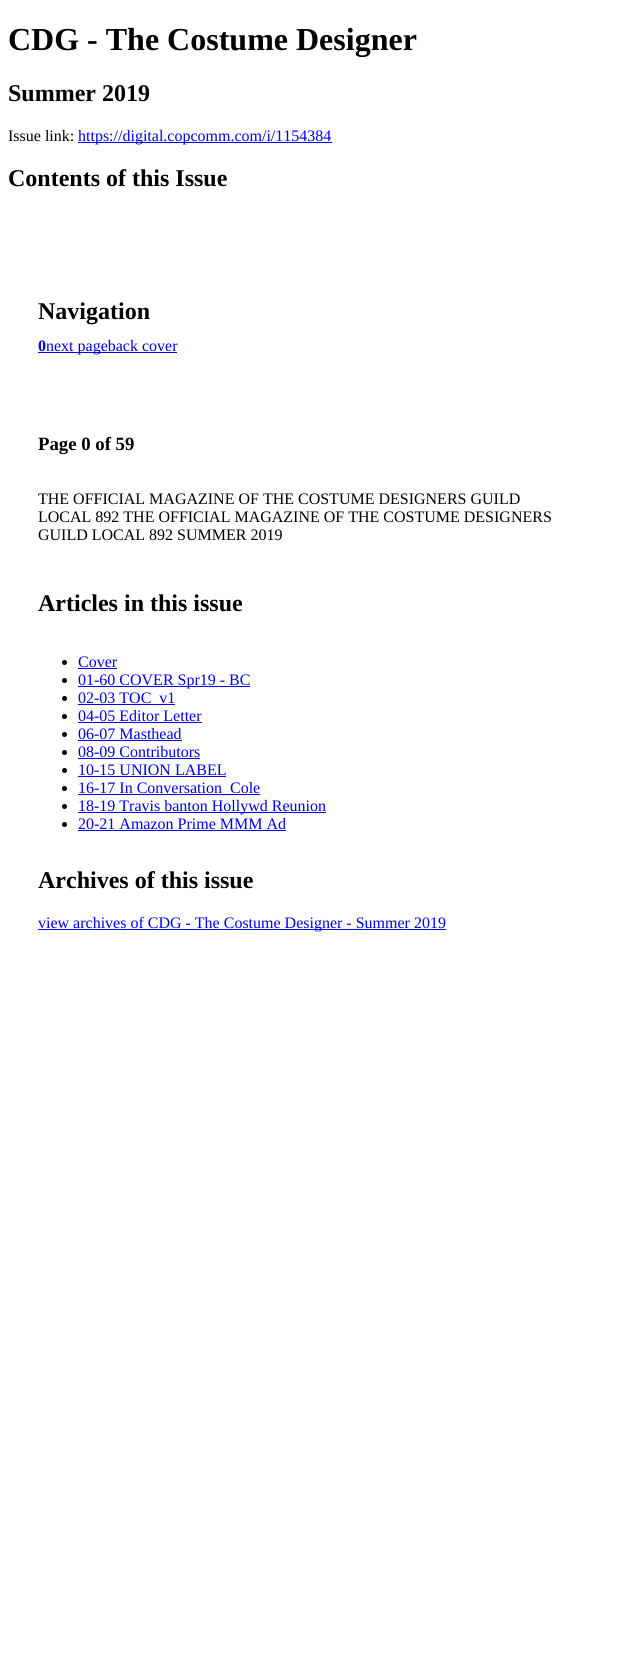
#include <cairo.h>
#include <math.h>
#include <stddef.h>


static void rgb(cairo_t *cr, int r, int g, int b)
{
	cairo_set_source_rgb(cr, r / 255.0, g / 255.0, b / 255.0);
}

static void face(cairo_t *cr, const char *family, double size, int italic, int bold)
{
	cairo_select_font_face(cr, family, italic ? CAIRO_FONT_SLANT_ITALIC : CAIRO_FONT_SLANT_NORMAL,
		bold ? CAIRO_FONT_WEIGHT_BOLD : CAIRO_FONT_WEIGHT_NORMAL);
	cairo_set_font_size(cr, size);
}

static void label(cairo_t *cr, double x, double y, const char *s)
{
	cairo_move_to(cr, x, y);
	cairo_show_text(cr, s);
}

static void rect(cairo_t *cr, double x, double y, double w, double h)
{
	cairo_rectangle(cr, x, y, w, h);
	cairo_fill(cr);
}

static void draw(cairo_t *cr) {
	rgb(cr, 255, 255, 255);
	cairo_paint(cr);
	face(cr, "Liberation Serif", 32, 0, 1);
	rgb(cr, 0, 0, 0);
	label(cr, 8, 50, "CDG - The Costume Designer");
	face(cr, "Liberation Serif", 24, 0, 1);
	label(cr, 8, 101, "Summer 2019");
	face(cr, "Liberation Serif", 16, 0, 0);
	label(cr, 8, 141, "Issue link:");
	rgb(cr, 0, 0, 238);
	rect(cr, 78, 142, 254, 1);
	label(cr, 78, 141, "https://digital.copcomm.com/i/1154384");
	face(cr, "Liberation Serif", 24, 0, 1);
	rgb(cr, 0, 0, 0);
	label(cr, 8, 186, "Contents of this Issue");
	label(cr, 38, 319, "Navigation");
	face(cr, "Liberation Serif", 16, 0, 1);
	rgb(cr, 0, 0, 238);
	label(cr, 38, 351, "0");
	rect(cr, 38, 352, 139, 1);
	face(cr, "Liberation Serif", 16, 0, 0);
	label(cr, 46, 351, "next pageback cover");
	face(cr, "Liberation Serif", 18.75, 0, 1);
	rgb(cr, 0, 0, 0);
	label(cr, 38, 450, "Page 0 of 59");
	face(cr, "Liberation Serif", 16, 0, 0);
	label(cr, 38, 504, "THE OFFICIAL MAGAZINE OF THE COSTUME DESIGNERS GUILD");
	label(cr, 38, 522, "LOCAL 892 THE OFFICIAL MAGAZINE OF THE COSTUME DESIGNERS");
	label(cr, 38, 540, "GUILD LOCAL 892 SUMMER 2019");
	face(cr, "Liberation Serif", 24, 0, 1);
	label(cr, 38, 611, "Articles in this issue");
	cairo_new_path(cr);
	cairo_arc(cr, 64.5, 662.5, 2.5, 0, 2 * M_PI);
	cairo_fill(cr);
	face(cr, "Liberation Serif", 16, 0, 0);
	rgb(cr, 0, 0, 238);
	label(cr, 78, 667, "Cover");
	rect(cr, 78, 668, 39, 1);
	rgb(cr, 0, 0, 0);
	cairo_new_path(cr);
	cairo_arc(cr, 64.5, 680.5, 2.5, 0, 2 * M_PI);
	cairo_fill(cr);
	rgb(cr, 0, 0, 238);
	rect(cr, 78, 686, 172, 1);
	label(cr, 78, 685, "01-60 COVER Spr19 - BC");
	rgb(cr, 0, 0, 0);
	cairo_new_path(cr);
	cairo_arc(cr, 64.5, 698.5, 2.5, 0, 2 * M_PI);
	cairo_fill(cr);
	rgb(cr, 0, 0, 238);
	rect(cr, 78, 704, 97, 1);
	label(cr, 78, 703, "02-03 TOC_v1");
	rgb(cr, 0, 0, 0);
	cairo_new_path(cr);
	cairo_arc(cr, 64.5, 716.5, 2.5, 0, 2 * M_PI);
	cairo_fill(cr);
	rgb(cr, 0, 0, 238);
	label(cr, 78, 721, "04-05 Editor Letter");
	rect(cr, 78, 722, 124, 1);
	rgb(cr, 0, 0, 0);
	cairo_new_path(cr);
	cairo_arc(cr, 64.5, 734.5, 2.5, 0, 2 * M_PI);
	cairo_fill(cr);
	rgb(cr, 0, 0, 238);
	label(cr, 78, 739, "06-07 Masthead");
	rect(cr, 78, 740, 104, 1);
	rgb(cr, 0, 0, 0);
	cairo_new_path(cr);
	cairo_arc(cr, 64.5, 752.5, 2.5, 0, 2 * M_PI);
	cairo_fill(cr);
	rgb(cr, 0, 0, 238);
	label(cr, 78, 757, "08-09 Contributors");
	rect(cr, 78, 758, 122, 1);
	rgb(cr, 0, 0, 0);
	cairo_new_path(cr);
	cairo_arc(cr, 64.5, 770.5, 2.5, 0, 2 * M_PI);
	cairo_fill(cr);
	rgb(cr, 0, 0, 238);
	label(cr, 78, 775, "10-15 UNION LABEL");
	rect(cr, 78, 776, 148, 1);
	rgb(cr, 0, 0, 0);
	cairo_new_path(cr);
	cairo_arc(cr, 64.5, 788.5, 2.5, 0, 2 * M_PI);
	cairo_fill(cr);
	rgb(cr, 0, 0, 238);
	rect(cr, 78, 794, 182, 1);
	label(cr, 78, 793, "16-17 In Conversation_Cole");
	rgb(cr, 0, 0, 0);
	cairo_new_path(cr);
	cairo_arc(cr, 64.5, 806.5, 2.5, 0, 2 * M_PI);
	cairo_fill(cr);
	rgb(cr, 0, 0, 238);
	rect(cr, 78, 812, 248, 1);
	label(cr, 78, 811, "18-19 Travis banton Hollywd Reunion");
	rgb(cr, 0, 0, 0);
	cairo_new_path(cr);
	cairo_arc(cr, 64.5, 824.5, 2.5, 0, 2 * M_PI);
	cairo_fill(cr);
	rgb(cr, 0, 0, 238);
	label(cr, 78, 829, "20-21 Amazon Prime MMM Ad");
	rect(cr, 78, 830, 208, 1);
	face(cr, "Liberation Serif", 24, 0, 1);
	rgb(cr, 0, 0, 0);
	label(cr, 38, 888, "Archives of this issue");
	rgb(cr, 0, 0, 238);
	rect(cr, 38, 929, 408, 1);
	face(cr, "Liberation Serif", 16, 0, 0);
	label(cr, 38, 928, "view archives of CDG - The Costume Designer - Summer 2019");
}

int main(void) {
	cairo_surface_t *surface = cairo_image_surface_create(CAIRO_FORMAT_RGB24, 618, 1654);
	cairo_t *cr = cairo_create(surface);
	cairo_font_options_t *options = cairo_font_options_create();
	cairo_font_options_set_hint_metrics(options, CAIRO_HINT_METRICS_OFF);
	cairo_font_options_set_hint_style(options, CAIRO_HINT_STYLE_NONE);
	cairo_set_font_options(cr, options);
	cairo_set_miter_limit(cr, 4);
	draw(cr);
	cairo_surface_write_to_png(surface, "render.png");
	cairo_font_options_destroy(options);
	cairo_destroy(cr);
	cairo_surface_destroy(surface);
	return 0;
}
